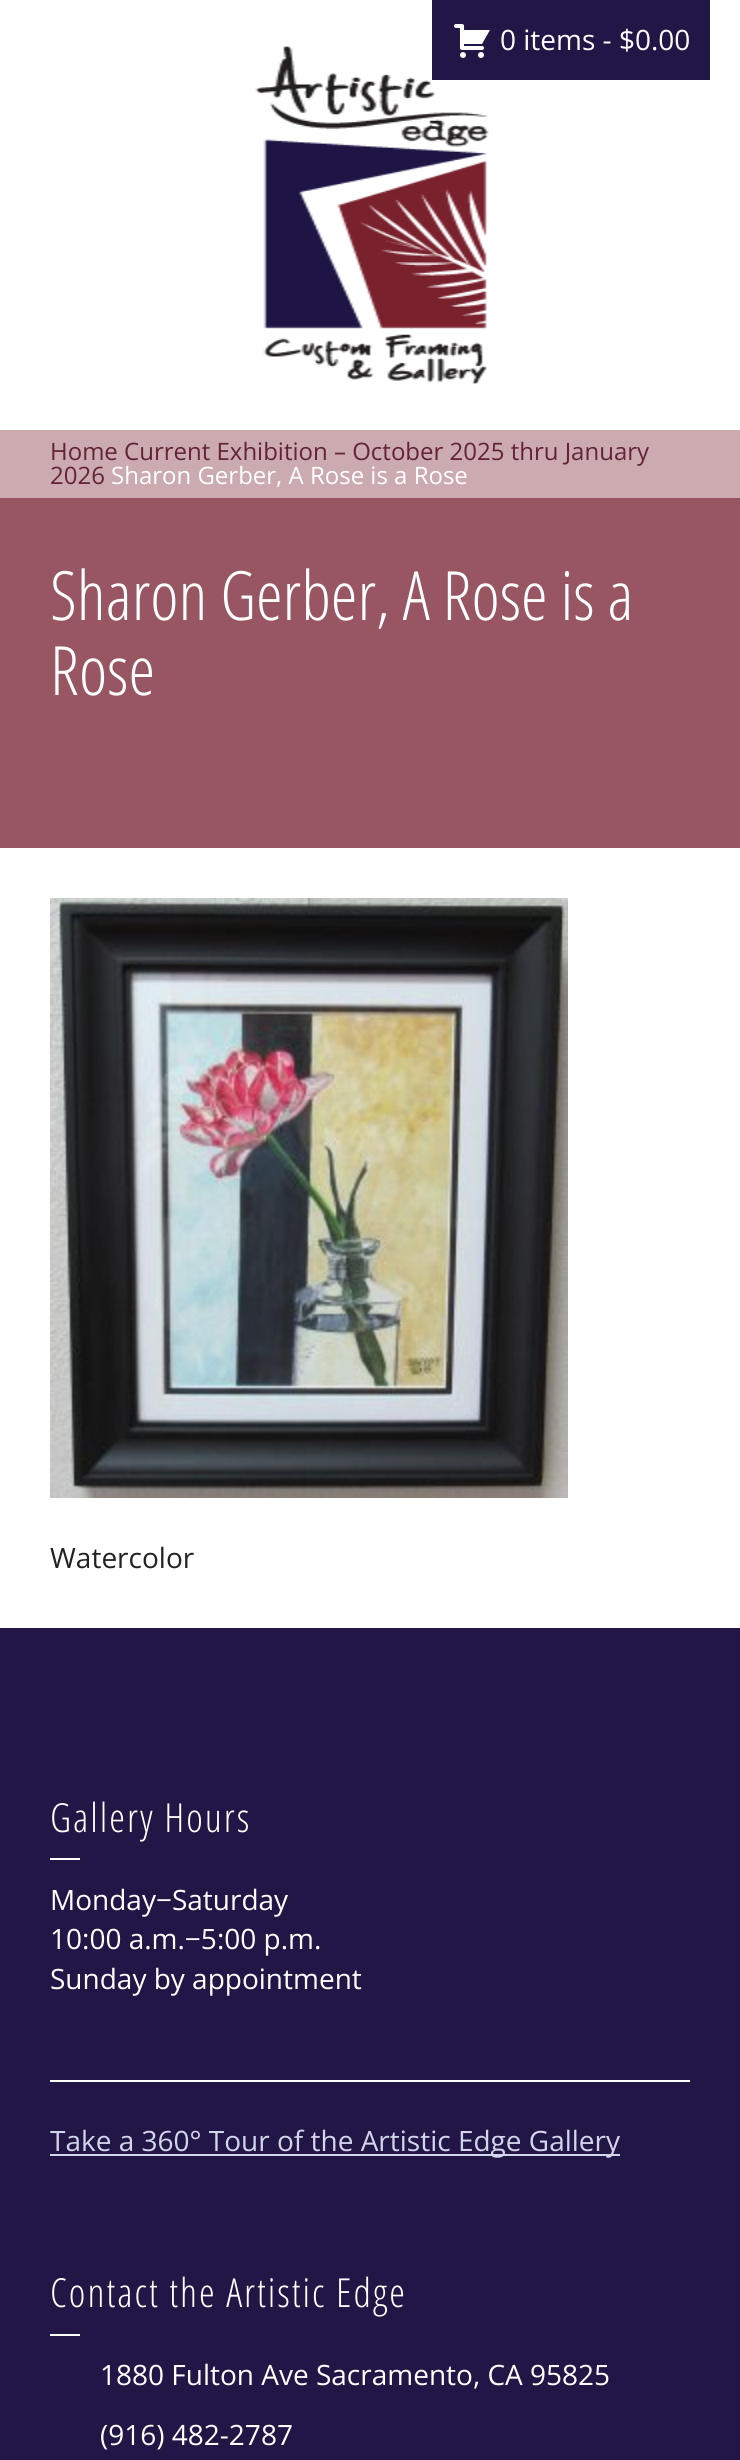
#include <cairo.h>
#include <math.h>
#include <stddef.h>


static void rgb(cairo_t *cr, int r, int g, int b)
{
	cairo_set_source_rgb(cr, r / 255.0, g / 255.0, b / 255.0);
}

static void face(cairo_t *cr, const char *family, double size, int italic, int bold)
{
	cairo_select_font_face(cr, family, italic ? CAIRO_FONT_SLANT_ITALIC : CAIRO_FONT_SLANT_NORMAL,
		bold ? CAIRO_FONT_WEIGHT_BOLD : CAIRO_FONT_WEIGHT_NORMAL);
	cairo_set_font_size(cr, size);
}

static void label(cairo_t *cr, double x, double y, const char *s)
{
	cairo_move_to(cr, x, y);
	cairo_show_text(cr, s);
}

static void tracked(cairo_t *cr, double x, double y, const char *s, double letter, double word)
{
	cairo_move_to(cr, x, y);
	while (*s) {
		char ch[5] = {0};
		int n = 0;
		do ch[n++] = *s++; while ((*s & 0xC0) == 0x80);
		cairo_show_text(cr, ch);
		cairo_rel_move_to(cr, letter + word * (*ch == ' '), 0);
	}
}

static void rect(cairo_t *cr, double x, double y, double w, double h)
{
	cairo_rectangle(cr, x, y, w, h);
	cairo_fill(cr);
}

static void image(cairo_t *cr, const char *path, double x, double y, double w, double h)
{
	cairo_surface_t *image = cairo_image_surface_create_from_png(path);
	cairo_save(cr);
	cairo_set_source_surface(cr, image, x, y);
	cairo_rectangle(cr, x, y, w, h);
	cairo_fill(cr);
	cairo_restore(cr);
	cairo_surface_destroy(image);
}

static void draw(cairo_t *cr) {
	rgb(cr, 33, 22, 69);
	cairo_paint(cr);
	rgb(cr, 255, 255, 255);
	rect(cr, 0, 0, 740, 430);
	image(cr, "image1.png", 255, 46, 234, 338);
	rgb(cr, 33, 22, 69);
	rect(cr, 432, 0, 278, 80);
	image(cr, "image0.png", 454, 24, 36, 34);
	face(cr, "Open Sans", 28, 0, 0);
	rgb(cr, 255, 255, 255);
	label(cr, 500, 50, "0 items - $0.00");
	rgb(cr, 151, 86, 97);
	rect(cr, 0, 498, 740, 350);
	rgb(cr, 203, 171, 176);
	rect(cr, 0, 430, 740, 68);
	face(cr, "Open Sans", 24, 0, 0);
	rgb(cr, 100, 34, 56);
	label(cr, 50, 460, "Home Current Exhibition – October 2025 thru January");
	label(cr, 50, 484, "2026");
	rgb(cr, 255, 255, 255);
	label(cr, 111, 484, "Sharon Gerber, A Rose is a Rose");
	face(cr, "Open Sans Condensed Light", 68, 0, 0);
	label(cr, 50, 620, "Sharon Gerber, A Rose is a");
	label(cr, 50, 695, "Rose");
	rect(cr, 0, 848, 740, 780);
	image(cr, "image2.png", 50, 898, 518, 600);
	face(cr, "Open Sans", 28, 0, 0);
	rgb(cr, 34, 34, 34);
	label(cr, 50, 1568, "Watercolor");
	face(cr, "Open Sans Condensed Light", 40, 0, 0);
	rgb(cr, 255, 255, 255);
	tracked(cr, 50, 1832, "Gallery Hours", 2, 0);
	rect(cr, 50, 1858, 30, 2);
	face(cr, "Open Sans", 28, 0, 0);
	label(cr, 50, 1910, "Monday−Saturday");
	label(cr, 50, 1949, "10:00 a.m.−5:00 p.m.");
	label(cr, 50, 1989, "Sunday by appointment");
	rect(cr, 50, 2080, 640, 2);
	rgb(cr, 210, 213, 236);
	rect(cr, 50, 2154, 570, 2);
	label(cr, 50, 2151, "Take a 360° Tour of the Artistic Edge Gallery");
	face(cr, "Open Sans Condensed Light", 40, 0, 0);
	rgb(cr, 255, 255, 255);
	tracked(cr, 50, 2307, "Contact the Artistic Edge", 2, 0);
	rect(cr, 50, 2334, 30, 2);
	face(cr, "Open Sans", 28, 0, 0);
	label(cr, 100, 2385, "1880 Fulton Ave Sacramento, CA 95825");
	label(cr, 100, 2445, "(916) 482-2787");
}

int main(void) {
	cairo_surface_t *surface = cairo_image_surface_create(CAIRO_FORMAT_RGB24, 740, 2460);
	cairo_t *cr = cairo_create(surface);
	cairo_font_options_t *options = cairo_font_options_create();
	cairo_font_options_set_hint_metrics(options, CAIRO_HINT_METRICS_OFF);
	cairo_font_options_set_hint_style(options, CAIRO_HINT_STYLE_NONE);
	cairo_set_font_options(cr, options);
	cairo_set_miter_limit(cr, 4);
	draw(cr);
	cairo_surface_write_to_png(surface, "render.png");
	cairo_font_options_destroy(options);
	cairo_destroy(cr);
	cairo_surface_destroy(surface);
	return 0;
}
